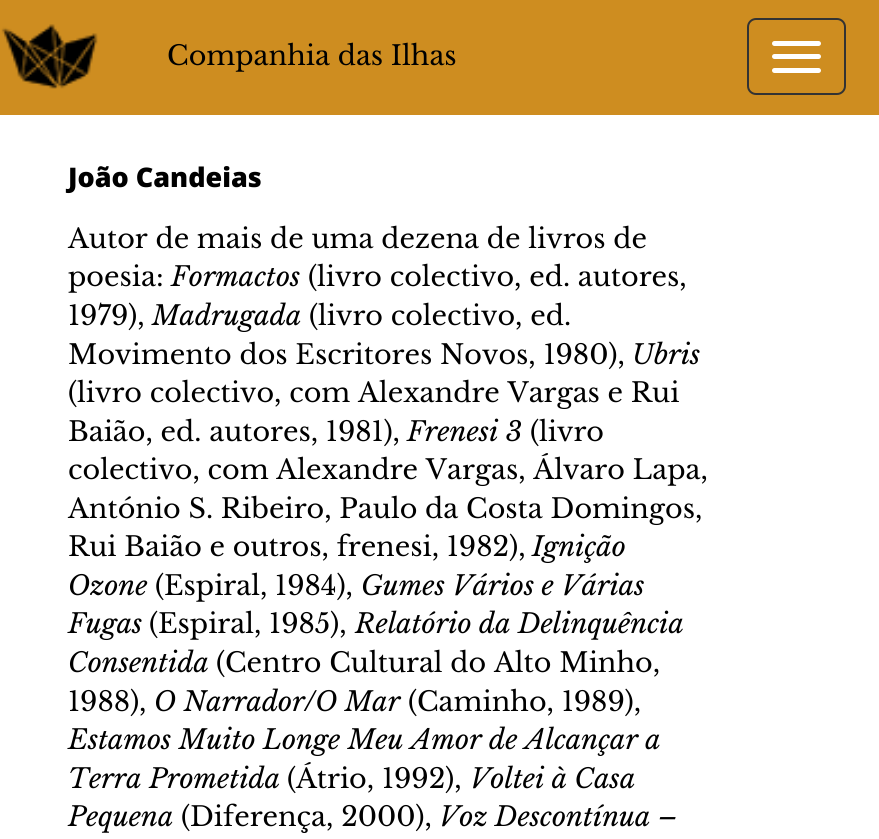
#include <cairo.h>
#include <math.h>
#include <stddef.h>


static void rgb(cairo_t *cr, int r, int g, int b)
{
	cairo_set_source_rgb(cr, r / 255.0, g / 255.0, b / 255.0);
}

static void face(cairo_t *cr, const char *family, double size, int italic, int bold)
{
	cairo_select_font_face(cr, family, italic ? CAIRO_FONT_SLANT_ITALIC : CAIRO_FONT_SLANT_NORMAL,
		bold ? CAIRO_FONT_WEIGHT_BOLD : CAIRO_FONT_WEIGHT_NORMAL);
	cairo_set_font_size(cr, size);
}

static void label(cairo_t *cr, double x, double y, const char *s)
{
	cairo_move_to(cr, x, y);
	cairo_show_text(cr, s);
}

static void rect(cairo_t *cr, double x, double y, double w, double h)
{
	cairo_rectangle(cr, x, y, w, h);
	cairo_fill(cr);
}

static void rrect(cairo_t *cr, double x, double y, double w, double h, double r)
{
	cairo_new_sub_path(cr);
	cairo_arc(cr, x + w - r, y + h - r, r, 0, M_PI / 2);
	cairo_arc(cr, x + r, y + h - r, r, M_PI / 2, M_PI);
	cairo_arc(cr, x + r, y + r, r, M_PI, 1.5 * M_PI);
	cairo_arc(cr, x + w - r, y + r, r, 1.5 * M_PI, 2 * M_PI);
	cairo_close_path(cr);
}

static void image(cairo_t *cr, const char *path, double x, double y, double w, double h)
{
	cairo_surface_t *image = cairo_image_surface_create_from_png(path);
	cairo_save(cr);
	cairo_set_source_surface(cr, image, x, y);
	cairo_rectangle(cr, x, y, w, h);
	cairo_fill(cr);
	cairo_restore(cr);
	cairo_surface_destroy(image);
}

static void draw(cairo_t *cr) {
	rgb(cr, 255, 255, 255);
	cairo_paint(cr);
	rgb(cr, 206, 141, 32);
	rect(cr, 0, 0, 879, 115);
	image(cr, "image0.png", 1, 24, 97, 65);
	face(cr, "Libre Baskerville", 27, 0, 0);
	rgb(cr, 0, 0, 0);
	label(cr, 167, 65, "Companhia das Ilhas");
	rrect(cr, 748, 19, 97, 75, 8);
	rgb(cr, 51, 51, 51);
	cairo_stroke(cr);
	rgb(cr, 255, 255, 255);
	rrect(cr, 772, 41, 49, 5, 2.5);
	cairo_fill(cr);
	rrect(cr, 772, 54, 49, 5, 2.5);
	cairo_fill(cr);
	rrect(cr, 772, 68, 49, 5, 2.5);
	cairo_fill(cr);
	face(cr, "Open Sans ExtraBold", 27, 0, 0);
	rgb(cr, 0, 0, 0);
	label(cr, 68, 187, "João Candeias");
	face(cr, "Libre Baskerville", 27, 0, 0);
	label(cr, 68, 248, "Autor de mais de uma dezena de livros de");
	label(cr, 68, 286, "poesia:");
	face(cr, "Libre Baskerville", 27, 1, 0);
	label(cr, 171, 286, "Formactos");
	face(cr, "Libre Baskerville", 27, 0, 0);
	label(cr, 308, 286, "(livro colectivo, ed. autores,");
	label(cr, 68, 325, "1979),");
	face(cr, "Libre Baskerville", 27, 1, 0);
	label(cr, 152, 325, "Madrugada");
	face(cr, "Libre Baskerville", 27, 0, 0);
	label(cr, 309, 325, "(livro colectivo, ed.");
	label(cr, 68, 364, "Movimento dos Escritores Novos, 1980),");
	face(cr, "Libre Baskerville", 27, 1, 0);
	label(cr, 632, 364, "Ubris");
	face(cr, "Libre Baskerville", 27, 0, 0);
	label(cr, 68, 402, "(livro colectivo, com Alexandre Vargas e Rui");
	label(cr, 68, 441, "Baião, ed. autores, 1981),");
	face(cr, "Libre Baskerville", 27, 1, 0);
	label(cr, 407, 441, "Frenesi 3");
	face(cr, "Libre Baskerville", 27, 0, 0);
	label(cr, 530, 441, "(livro");
	label(cr, 68, 479, "colectivo, com Alexandre Vargas, Álvaro Lapa,");
	label(cr, 68, 518, "António S. Ribeiro, Paulo da Costa Domingos,");
	label(cr, 68, 556, "Rui Baião e outros, frenesi, 1982),");
	face(cr, "Libre Baskerville", 27, 1, 0);
	label(cr, 532, 556, "Ignição");
	label(cr, 68, 595, "Ozone");
	face(cr, "Libre Baskerville", 27, 0, 0);
	label(cr, 155, 595, "(Espiral, 1984),");
	face(cr, "Libre Baskerville", 27, 1, 0);
	label(cr, 361, 595, "Gumes Vários e Várias");
	label(cr, 68, 633, "Fugas");
	face(cr, "Libre Baskerville", 27, 0, 0);
	label(cr, 149, 633, "(Espiral, 1985),");
	face(cr, "Libre Baskerville", 27, 1, 0);
	label(cr, 355, 633, "Relatório da Delinquência");
	label(cr, 68, 672, "Consentida");
	face(cr, "Libre Baskerville", 27, 0, 0);
	label(cr, 216, 672, "(Centro Cultural do Alto Minho,");
	label(cr, 68, 711, "1988),");
	face(cr, "Libre Baskerville", 27, 1, 0);
	label(cr, 154, 711, "O Narrador/O Mar");
	face(cr, "Libre Baskerville", 27, 0, 0);
	label(cr, 408, 711, "(Caminho, 1989),");
	face(cr, "Libre Baskerville", 27, 1, 0);
	label(cr, 68, 749, "Estamos Muito Longe Meu Amor de Alcançar a");
	label(cr, 68, 788, "Terra Prometida");
	face(cr, "Libre Baskerville", 27, 0, 0);
	label(cr, 287, 788, "(Átrio, 1992),");
	face(cr, "Libre Baskerville", 27, 1, 0);
	label(cr, 470, 788, "Voltei à Casa");
	label(cr, 68, 826, "Pequena");
	face(cr, "Libre Baskerville", 27, 0, 0);
	label(cr, 181, 826, "(Diferença, 2000),");
	face(cr, "Libre Baskerville", 27, 1, 0);
	label(cr, 439, 826, "Voz Descontínua –");
}

int main(void) {
	cairo_surface_t *surface = cairo_image_surface_create(CAIRO_FORMAT_RGB24, 879, 839);
	cairo_t *cr = cairo_create(surface);
	cairo_font_options_t *options = cairo_font_options_create();
	cairo_font_options_set_hint_metrics(options, CAIRO_HINT_METRICS_OFF);
	cairo_font_options_set_hint_style(options, CAIRO_HINT_STYLE_NONE);
	cairo_set_font_options(cr, options);
	cairo_set_miter_limit(cr, 4);
	draw(cr);
	cairo_surface_write_to_png(surface, "render.png");
	cairo_font_options_destroy(options);
	cairo_destroy(cr);
	cairo_surface_destroy(surface);
	return 0;
}
